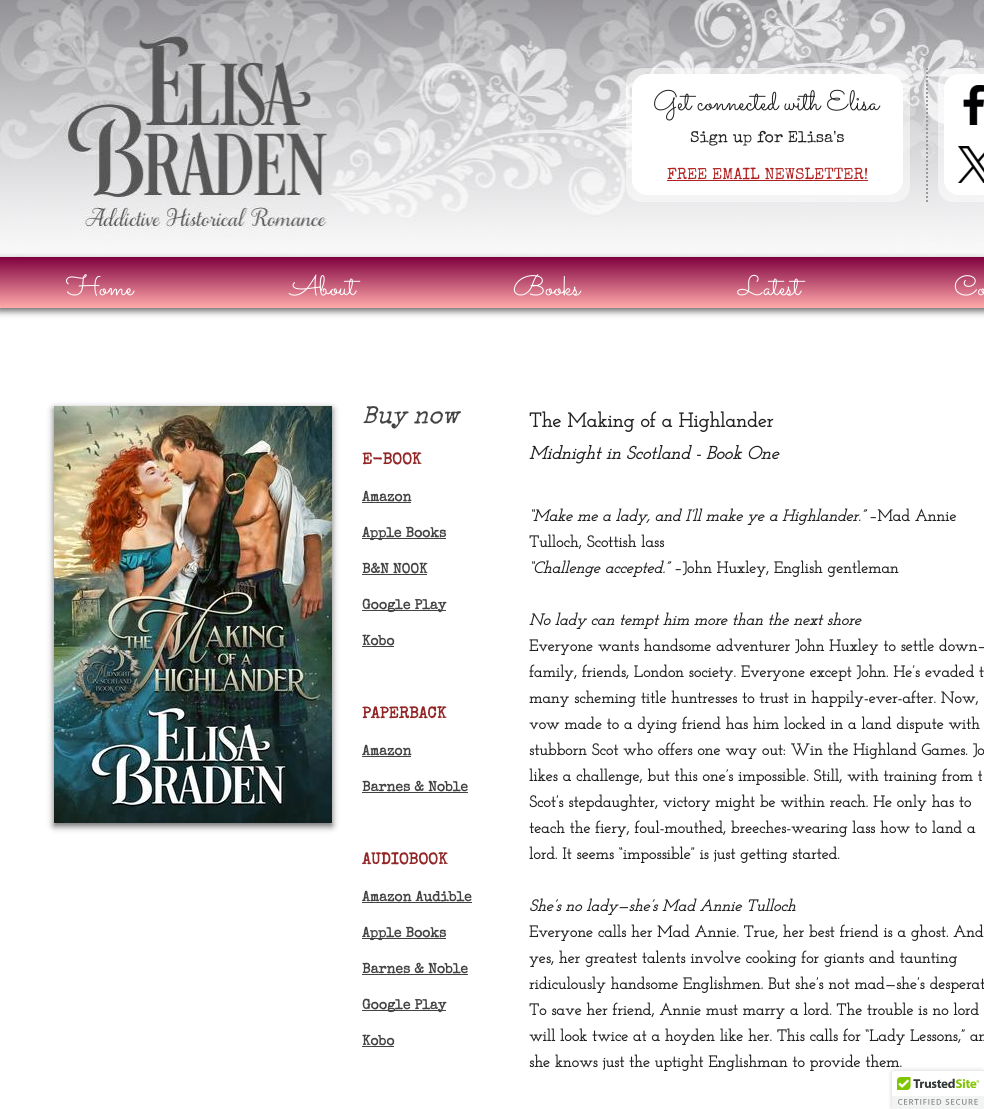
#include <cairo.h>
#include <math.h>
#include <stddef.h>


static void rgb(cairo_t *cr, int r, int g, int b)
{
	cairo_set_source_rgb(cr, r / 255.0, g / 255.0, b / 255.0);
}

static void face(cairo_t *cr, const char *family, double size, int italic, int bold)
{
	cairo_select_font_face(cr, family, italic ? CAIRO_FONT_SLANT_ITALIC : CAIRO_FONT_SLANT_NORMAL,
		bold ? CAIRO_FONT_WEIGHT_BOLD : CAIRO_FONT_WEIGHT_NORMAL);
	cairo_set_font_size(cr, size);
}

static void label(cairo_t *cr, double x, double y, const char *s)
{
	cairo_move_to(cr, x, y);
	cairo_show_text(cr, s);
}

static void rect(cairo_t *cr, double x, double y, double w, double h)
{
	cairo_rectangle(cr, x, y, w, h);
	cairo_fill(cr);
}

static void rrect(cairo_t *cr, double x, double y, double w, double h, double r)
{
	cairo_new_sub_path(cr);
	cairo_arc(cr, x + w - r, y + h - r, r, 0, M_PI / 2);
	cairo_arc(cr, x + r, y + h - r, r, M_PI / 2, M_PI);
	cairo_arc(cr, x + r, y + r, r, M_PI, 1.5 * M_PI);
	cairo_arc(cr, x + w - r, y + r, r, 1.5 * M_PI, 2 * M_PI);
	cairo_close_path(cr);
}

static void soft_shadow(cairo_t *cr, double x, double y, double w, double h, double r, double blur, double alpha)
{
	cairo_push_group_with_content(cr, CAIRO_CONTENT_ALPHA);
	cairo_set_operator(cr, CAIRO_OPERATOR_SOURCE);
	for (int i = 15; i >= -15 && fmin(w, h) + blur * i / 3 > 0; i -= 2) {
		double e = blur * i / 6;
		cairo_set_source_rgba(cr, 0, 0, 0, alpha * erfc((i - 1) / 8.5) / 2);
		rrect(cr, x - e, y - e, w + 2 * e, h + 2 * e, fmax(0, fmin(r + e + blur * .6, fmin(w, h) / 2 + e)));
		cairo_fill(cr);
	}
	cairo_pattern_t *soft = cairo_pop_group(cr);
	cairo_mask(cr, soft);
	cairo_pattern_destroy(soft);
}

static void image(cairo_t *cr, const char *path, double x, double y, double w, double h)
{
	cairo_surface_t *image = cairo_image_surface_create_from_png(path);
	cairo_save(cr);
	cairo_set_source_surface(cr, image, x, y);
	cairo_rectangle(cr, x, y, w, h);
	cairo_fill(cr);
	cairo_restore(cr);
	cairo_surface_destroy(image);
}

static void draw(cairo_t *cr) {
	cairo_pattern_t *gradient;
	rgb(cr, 255, 255, 255);
	cairo_paint(cr);
	image(cr, "image0.png", 0, 0, 984, 257);
	cairo_set_source_rgba(cr, 1, 1, 1, 0.5);
	rrect(cr, 626, 68, 284, 134, 15);
	cairo_fill(cr);
	cairo_new_path(cr);
	cairo_move_to(cr, 927, 68);
	cairo_line_to(cr, 927, 202);
	rgb(cr, 153, 153, 153);
	cairo_set_dash(cr, (double[]){2, 2}, 2, 0);
	cairo_stroke(cr);
	cairo_set_source_rgba(cr, 1, 1, 1, 0.5);
	cairo_new_path(cr);
	cairo_move_to(cr, 953, 68);
	cairo_line_to(cr, 984, 68);
	cairo_line_to(cr, 984, 202);
	cairo_line_to(cr, 953, 202);
	cairo_curve_to(cr, 944.5, 202, 938, 195.5, 938, 187);
	cairo_line_to(cr, 938, 83);
	cairo_curve_to(cr, 938, 74.5, 944.5, 68, 953, 68);
	cairo_close_path(cr);
	cairo_fill(cr);
	rgb(cr, 255, 255, 255);
	rrect(cr, 632, 74, 271, 121, 15);
	cairo_fill(cr);
	cairo_new_path(cr);
	cairo_move_to(cr, 959, 74);
	cairo_line_to(cr, 984, 74);
	cairo_line_to(cr, 984, 195);
	cairo_line_to(cr, 959, 195);
	cairo_curve_to(cr, 950.5, 195, 944, 188.5, 944, 180);
	cairo_line_to(cr, 944, 89);
	cairo_curve_to(cr, 944, 80.5, 950.5, 74, 959, 74);
	cairo_close_path(cr);
	cairo_fill(cr);
	face(cr, "Sacramento", 28, 0, 0);
	rgb(cr, 34, 34, 34);
	label(cr, 653, 110, "Get connected with Elisa");
	image(cr, "image1.png", 963, 85, 21, 40);
	face(cr, "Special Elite", 16, 0, 0);
	label(cr, 690, 142, "Sign up for Elisa's");
	rgb(cr, 178, 34, 34);
	label(cr, 667, 179, "FREE EMAIL NEWSLETTER!");
	rect(cr, 667, 180, 201, 1);
	image(cr, "image2.png", 958, 146, 26, 37);
	rgb(cr, 50, 50, 50);
	soft_shadow(cr, -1, 260, 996, 51, 0, 3.5, 0.75);
	gradient = cairo_pattern_create_linear(550, 257, 550, 308);
	cairo_pattern_add_color_stop_rgba(gradient, 0, 0.498, 0, 0.247, 1);
	cairo_pattern_add_color_stop_rgba(gradient, 1, 1, 0.667, 0.667, 1);
	cairo_set_source(cr, gradient);
	cairo_pattern_destroy(gradient);
	rect(cr, 0, 257, 984, 51);
	face(cr, "Sacramento", 28, 0, 0);
	rgb(cr, 255, 255, 255);
	label(cr, 66, 295, "Home");
	label(cr, 290, 295, "About");
	label(cr, 513, 295, "Books");
	label(cr, 738, 295, "Latest");
	label(cr, 954, 295, "Co");
	rgb(cr, 50, 50, 50);
	soft_shadow(cr, 54, 409, 278, 417, 0, 3.5, 0.75);
	image(cr, "image3.png", 54, 406, 278, 417);
	face(cr, "Special Elite", 24, 1, 0);
	rgb(cr, 67, 67, 67);
	label(cr, 362, 423, "Buy now");
	face(cr, "Special Elite", 16, 0, 1);
	rgb(cr, 147, 38, 38);
	label(cr, 362, 464, "E-BOOK");
	face(cr, "Special Elite", 14, 0, 1);
	rgb(cr, 67, 67, 67);
	label(cr, 362, 501, "Amazon");
	rect(cr, 362, 502, 49, 1);
	rect(cr, 362, 538, 84, 1);
	label(cr, 362, 537, "Apple Books");
	label(cr, 362, 573, "B&N NOOK");
	rect(cr, 362, 574, 65, 1);
	rect(cr, 362, 610, 84, 1);
	label(cr, 362, 609, "Google Play");
	label(cr, 362, 645, "Kobo");
	rect(cr, 362, 646, 32, 1);
	face(cr, "Special Elite", 16, 0, 1);
	rgb(cr, 147, 38, 38);
	label(cr, 362, 718, "PAPERBACK");
	face(cr, "Special Elite", 14, 0, 1);
	rgb(cr, 67, 67, 67);
	label(cr, 362, 755, "Amazon");
	rect(cr, 362, 756, 49, 1);
	label(cr, 362, 791, "Barnes & Noble");
	rect(cr, 362, 792, 106, 1);
	face(cr, "Special Elite", 16, 0, 1);
	rgb(cr, 147, 38, 38);
	label(cr, 362, 864, "AUDIOBOOK");
	face(cr, "Special Elite", 14, 0, 1);
	rgb(cr, 67, 67, 67);
	label(cr, 362, 901, "Amazon Audible");
	rect(cr, 362, 902, 110, 1);
	rect(cr, 362, 938, 84, 1);
	label(cr, 362, 937, "Apple Books");
	label(cr, 362, 973, "Barnes & Noble");
	rect(cr, 362, 974, 106, 1);
	rect(cr, 362, 1010, 84, 1);
	label(cr, 362, 1009, "Google Play");
	label(cr, 362, 1045, "Kobo");
	rect(cr, 362, 1046, 32, 1);
	face(cr, "Josefin Slab", 20, 0, 1);
	rgb(cr, 34, 34, 34);
	label(cr, 529, 427, "The Making of a Highlander");
	face(cr, "Josefin Slab", 18, 1, 1);
	label(cr, 529, 459, "Midnight in Scotland - Book One");
	face(cr, "Josefin Slab", 16, 1, 1);
	label(cr, 529, 521, "“Make me a lady, and I’ll make ye a Highlander.”");
	face(cr, "Josefin Slab", 16, 0, 1);
	label(cr, 869, 521, "–Mad Annie");
	label(cr, 529, 547, "Tulloch, Scottish lass");
	face(cr, "Josefin Slab", 16, 1, 1);
	label(cr, 529, 573, "“Challenge accepted.”");
	face(cr, "Josefin Slab", 16, 0, 1);
	label(cr, 674, 573, "–John Huxley, English gentleman");
	face(cr, "Josefin Slab", 16, 1, 1);
	label(cr, 529, 625, "No lady can tempt him more than the next shore");
	face(cr, "Josefin Slab", 16, 0, 1);
	label(cr, 529, 651, "Everyone wants handsome adventurer John Huxley to settle down—");
	label(cr, 529, 677, "family, friends, London society. Everyone except John. He’s evaded t");
	label(cr, 529, 703, "many scheming title huntresses to trust in happily-ever-after. Now,");
	label(cr, 529, 729, "vow made to a dying friend has him locked in a land dispute with");
	label(cr, 529, 755, "stubborn Scot who offers one way out: Win the Highland Games. Jo");
	label(cr, 529, 781, "likes a challenge, but this one’s impossible. Still, with training from t");
	label(cr, 529, 807, "Scot’s stepdaughter, victory might be within reach. He only has to");
	label(cr, 529, 833, "teach the fiery, foul-mouthed, breeches-wearing lass how to land a");
	label(cr, 529, 859, "lord. It seems “impossible” is just getting started.");
	face(cr, "Josefin Slab", 16, 1, 1);
	label(cr, 529, 911, "She’s no lady—she’s Mad Annie Tulloch");
	face(cr, "Josefin Slab", 16, 0, 1);
	label(cr, 529, 937, "Everyone calls her Mad Annie. True, her best friend is a ghost. And");
	label(cr, 529, 963, "yes, her greatest talents involve cooking for giants and taunting");
	label(cr, 529, 989, "ridiculously handsome Englishmen. But she’s not mad—she’s desperat");
	label(cr, 529, 1015, "To save her friend, Annie must marry a lord. The trouble is no lord");
	label(cr, 529, 1041, "will look twice at a hoyden like her. This calls for “Lady Lessons,” an");
	label(cr, 529, 1067, "she knows just the uptight Englishman to provide them.");
	rgb(cr, 0, 0, 0);
	soft_shadow(cr, 892, 1071, 92, 38, 2, 2.5, 0.2);
	rgb(cr, 255, 255, 255);
	cairo_new_path(cr);
	cairo_move_to(cr, 894, 1071);
	cairo_line_to(cr, 984, 1071);
	cairo_line_to(cr, 984, 1109);
	cairo_line_to(cr, 892, 1109);
	cairo_line_to(cr, 892, 1073);
	cairo_curve_to(cr, 892, 1072, 893, 1071, 894, 1071);
	cairo_close_path(cr);
	cairo_fill(cr);
	image(cr, "image4.png", 892, 1071, 92, 38);
}

int main(void) {
	cairo_surface_t *surface = cairo_image_surface_create(CAIRO_FORMAT_RGB24, 984, 1109);
	cairo_t *cr = cairo_create(surface);
	cairo_font_options_t *options = cairo_font_options_create();
	cairo_font_options_set_hint_metrics(options, CAIRO_HINT_METRICS_OFF);
	cairo_font_options_set_hint_style(options, CAIRO_HINT_STYLE_NONE);
	cairo_set_font_options(cr, options);
	cairo_set_miter_limit(cr, 4);
	draw(cr);
	cairo_surface_write_to_png(surface, "render.png");
	cairo_font_options_destroy(options);
	cairo_destroy(cr);
	cairo_surface_destroy(surface);
	return 0;
}
